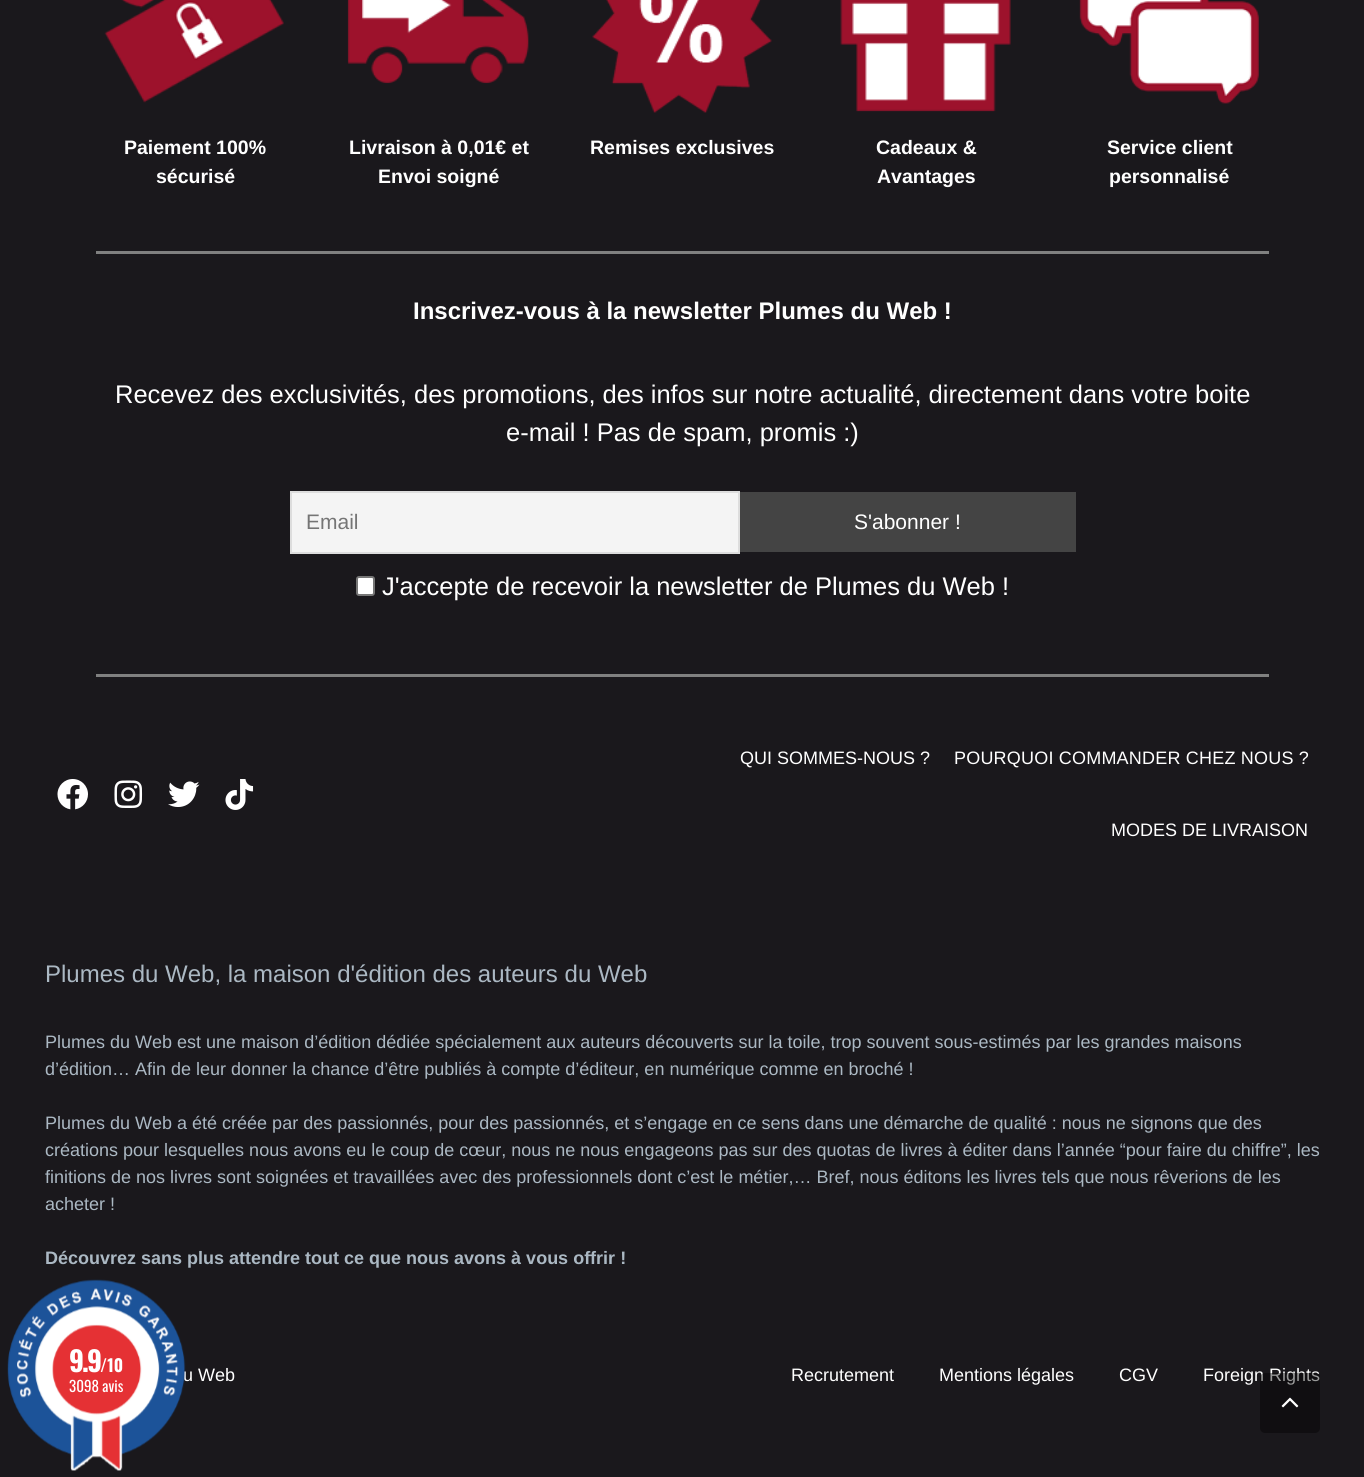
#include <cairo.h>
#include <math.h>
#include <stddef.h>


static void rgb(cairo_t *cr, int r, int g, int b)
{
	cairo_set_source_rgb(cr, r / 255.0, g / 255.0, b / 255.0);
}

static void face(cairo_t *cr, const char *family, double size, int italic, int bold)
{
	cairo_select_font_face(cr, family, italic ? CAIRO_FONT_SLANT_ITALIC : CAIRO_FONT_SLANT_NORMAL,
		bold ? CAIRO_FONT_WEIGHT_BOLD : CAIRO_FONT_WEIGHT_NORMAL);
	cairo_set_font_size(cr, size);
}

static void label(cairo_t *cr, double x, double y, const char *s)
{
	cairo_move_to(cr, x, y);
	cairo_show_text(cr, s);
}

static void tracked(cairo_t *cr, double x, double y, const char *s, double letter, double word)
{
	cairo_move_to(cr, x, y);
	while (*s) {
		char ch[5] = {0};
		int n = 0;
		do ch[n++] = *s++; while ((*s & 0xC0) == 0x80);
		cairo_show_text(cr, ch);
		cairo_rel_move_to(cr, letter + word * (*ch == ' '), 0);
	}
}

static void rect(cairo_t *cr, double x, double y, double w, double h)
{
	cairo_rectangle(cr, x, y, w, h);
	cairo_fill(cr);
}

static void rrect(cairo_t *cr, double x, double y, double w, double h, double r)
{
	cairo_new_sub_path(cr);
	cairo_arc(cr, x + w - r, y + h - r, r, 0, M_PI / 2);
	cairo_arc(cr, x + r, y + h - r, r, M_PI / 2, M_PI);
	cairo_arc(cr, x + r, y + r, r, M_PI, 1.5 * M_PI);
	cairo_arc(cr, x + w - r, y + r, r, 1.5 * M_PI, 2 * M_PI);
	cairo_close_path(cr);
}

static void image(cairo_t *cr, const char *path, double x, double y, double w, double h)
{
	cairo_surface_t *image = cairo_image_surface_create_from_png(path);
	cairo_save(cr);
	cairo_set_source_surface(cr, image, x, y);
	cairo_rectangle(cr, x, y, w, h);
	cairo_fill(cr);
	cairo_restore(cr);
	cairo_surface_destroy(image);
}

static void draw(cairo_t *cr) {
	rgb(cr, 26, 24, 28);
	cairo_paint(cr);
	image(cr, "image0.png", 104, 0, 180, 103);
	face(cr, "Liberation Sans", 19.5, 0, 1);
	rgb(cr, 255, 255, 255);
	label(cr, 124, 154, "Paiement 100%");
	label(cr, 156, 183, "sécurisé");
	image(cr, "image1.png", 347, 0, 182, 84);
	label(cr, 349, 154, "Livraison à 0,01€ et");
	label(cr, 378, 183, "Envoi soigné");
	image(cr, "image2.png", 592, 0, 180, 113);
	label(cr, 590, 154, "Remises exclusives");
	image(cr, "image3.png", 840, 0, 171, 112);
	label(cr, 876, 154, "Cadeaux &");
	label(cr, 877, 183, "Avantages");
	image(cr, "image4.png", 1079, 0, 180, 104);
	label(cr, 1107, 154, "Service client");
	label(cr, 1109, 183, "personnalisé");
	rgb(cr, 128, 128, 128);
	rect(cr, 96, 251, 1173, 3);
	face(cr, "Liberation Sans", 24, 0, 1);
	rgb(cr, 255, 255, 255);
	label(cr, 413, 319, "Inscrivez-vous à la newsletter Plumes du Web !");
	face(cr, "Liberation Sans", 25.5, 0, 0);
	label(cr, 115, 403, "Recevez des exclusivités, des promotions, des infos sur notre actualité, directement dans votre boite");
	label(cr, 506, 441, "e-mail ! Pas de spam, promis :)");
	rgb(cr, 244, 244, 244);
	cairo_rectangle(cr, 291, 492, 448, 61);
	cairo_fill_preserve(cr);
	rgb(cr, 221, 221, 221);
	cairo_stroke(cr);
	face(cr, "Liberation Sans", 21, 0, 0);
	rgb(cr, 117, 117, 117);
	label(cr, 306, 529, "Email");
	rgb(cr, 68, 68, 68);
	rect(cr, 740, 492, 336, 60);
	rgb(cr, 255, 255, 255);
	label(cr, 854, 529, "S'abonner !");
	rrect(cr, 357, 577, 17, 18, 2);
	cairo_fill_preserve(cr);
	rgb(cr, 118, 118, 118);
	cairo_stroke(cr);
	face(cr, "Liberation Sans", 25.5, 0, 0);
	rgb(cr, 255, 255, 255);
	label(cr, 382, 595, "J'accepte de recevoir la newsletter de Plumes du Web !");
	rgb(cr, 128, 128, 128);
	rect(cr, 96, 674, 1173, 3);
	image(cr, "image5.png", 57, 779, 31, 31);
	image(cr, "image6.png", 114, 780, 29, 28);
	image(cr, "image7.png", 168, 781, 32, 26);
	image(cr, "image8.png", 225, 779, 29, 31);
	face(cr, "Liberation Sans", 18, 0, 0);
	rgb(cr, 255, 255, 255);
	label(cr, 740, 764, "QUI SOMMES-NOUS ?");
	tracked(cr, 954, 764, "POURQUOI COMMANDER CHEZ NOUS ?", 0.2, 0);
	label(cr, 1111, 836, "MODES DE LIVRAISON");
	face(cr, "Liberation Sans", 24, 0, 0);
	rgb(cr, 171, 184, 195);
	label(cr, 45, 982, "Plumes du Web, la maison d'édition des auteurs du Web");
	face(cr, "Liberation Sans", 18, 0, 0);
	label(cr, 45, 1048, "Plumes du Web est une maison d’édition dédiée spécialement aux auteurs découverts sur la toile, trop souvent sous-estimés par les grandes maisons");
	label(cr, 45, 1075, "d’édition… Afin de leur donner la chance d’être publiés à compte d’éditeur, en numérique comme en broché !");
	label(cr, 45, 1129, "Plumes du Web a été créée par des passionnés, pour des passionnés, et s’engage en ce sens dans une démarche de qualité : nous ne signons que des");
	label(cr, 45, 1156, "créations pour lesquelles nous avons eu le coup de cœur, nous ne nous engageons pas sur des quotas de livres à éditer dans l’année “pour faire du chiffre”, les");
	label(cr, 45, 1183, "finitions de nos livres sont soignées et travaillées avec des professionnels dont c’est le métier,… Bref, nous éditons les livres tels que nous rêverions de les");
	label(cr, 45, 1210, "acheter !");
	face(cr, "Liberation Sans", 18, 0, 1);
	label(cr, 45, 1264, "Découvrez sans plus attendre tout ce que nous avons à vous offrir !");
	face(cr, "Liberation Sans", 18, 0, 0);
	rgb(cr, 255, 255, 255);
	label(cr, 183, 1381, "u Web");
	label(cr, 791, 1381, "Recrutement");
	label(cr, 939, 1381, "Mentions légales");
	label(cr, 1119, 1381, "CGV");
	label(cr, 1203, 1381, "Foreign Rights");
	image(cr, "image9.png", 7, 1279, 179, 192);
	face(cr, "Oswald", 28, 0, 1);
	tracked(cr, 69, 1372, "9.9", -2, 0);
	face(cr, "Oswald", 17, 0, 1);
	label(cr, 100, 1372, "/10");
	face(cr, "Oswald", 15, 0, 0);
	label(cr, 69, 1392, "3098 avis");
	cairo_set_source_rgba(cr, 0, 0, 0, 0.4);
	rrect(cr, 1260, 1373, 60, 60, 5);
	cairo_fill(cr);
	image(cr, "image10.png", 1281, 1397, 18, 11);
}

int main(void) {
	cairo_surface_t *surface = cairo_image_surface_create(CAIRO_FORMAT_RGB24, 1364, 1477);
	cairo_t *cr = cairo_create(surface);
	cairo_font_options_t *options = cairo_font_options_create();
	cairo_font_options_set_hint_metrics(options, CAIRO_HINT_METRICS_OFF);
	cairo_font_options_set_hint_style(options, CAIRO_HINT_STYLE_NONE);
	cairo_set_font_options(cr, options);
	cairo_set_miter_limit(cr, 4);
	draw(cr);
	cairo_surface_write_to_png(surface, "render.png");
	cairo_font_options_destroy(options);
	cairo_destroy(cr);
	cairo_surface_destroy(surface);
	return 0;
}
